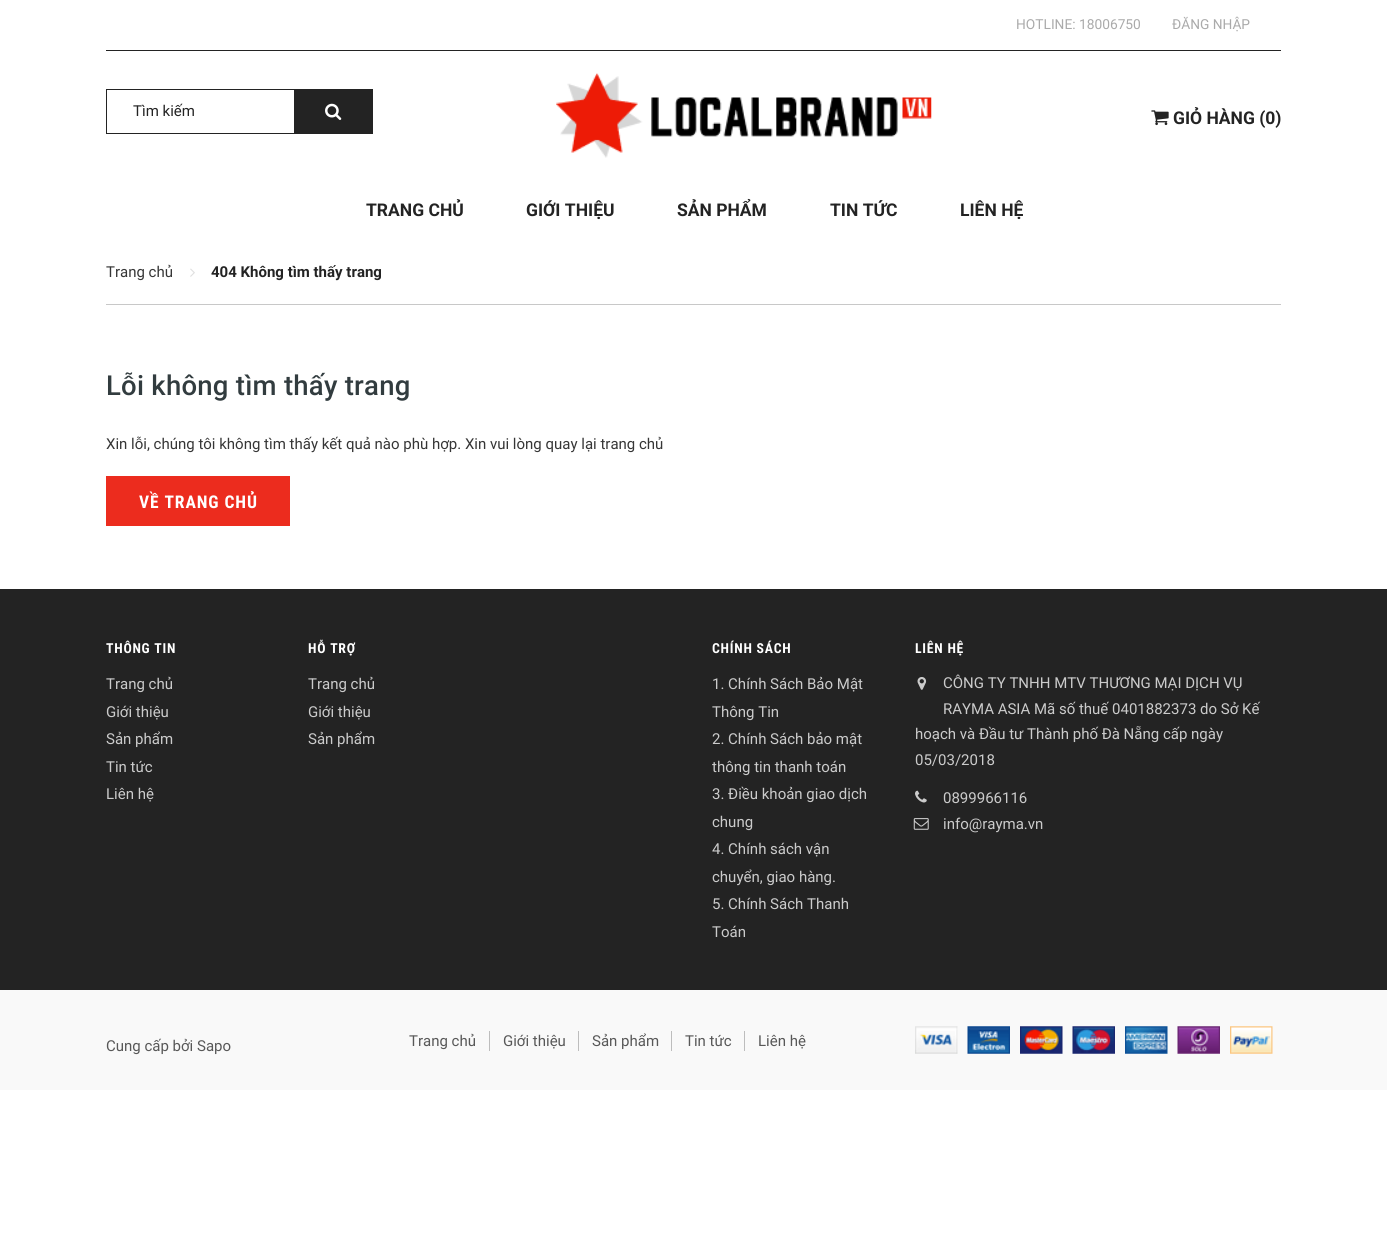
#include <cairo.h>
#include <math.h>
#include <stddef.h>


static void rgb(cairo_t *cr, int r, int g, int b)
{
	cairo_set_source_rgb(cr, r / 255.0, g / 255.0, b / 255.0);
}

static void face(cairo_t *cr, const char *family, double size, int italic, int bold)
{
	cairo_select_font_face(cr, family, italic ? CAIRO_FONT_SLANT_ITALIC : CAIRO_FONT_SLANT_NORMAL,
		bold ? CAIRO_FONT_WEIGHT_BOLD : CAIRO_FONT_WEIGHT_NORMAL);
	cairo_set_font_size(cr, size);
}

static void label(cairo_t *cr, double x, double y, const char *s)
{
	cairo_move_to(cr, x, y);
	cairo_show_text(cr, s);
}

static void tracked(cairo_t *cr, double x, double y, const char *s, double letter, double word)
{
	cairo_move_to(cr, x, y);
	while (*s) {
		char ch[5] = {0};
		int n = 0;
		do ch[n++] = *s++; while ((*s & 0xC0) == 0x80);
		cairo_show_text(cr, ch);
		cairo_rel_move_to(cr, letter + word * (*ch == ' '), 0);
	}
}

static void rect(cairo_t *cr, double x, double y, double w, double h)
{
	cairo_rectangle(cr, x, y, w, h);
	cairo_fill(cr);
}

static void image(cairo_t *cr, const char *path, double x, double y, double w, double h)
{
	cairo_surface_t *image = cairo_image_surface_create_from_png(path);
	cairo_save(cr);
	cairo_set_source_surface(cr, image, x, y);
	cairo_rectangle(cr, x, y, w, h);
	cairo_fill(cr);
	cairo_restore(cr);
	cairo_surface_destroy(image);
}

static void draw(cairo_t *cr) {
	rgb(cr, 255, 255, 255);
	cairo_paint(cr);
	rgb(cr, 35, 35, 35);
	rect(cr, 106, 50, 1175, 1);
	face(cr, "Roboto", 13.75, 0, 0);
	rgb(cr, 170, 170, 170);
	label(cr, 1016, 29, "HOTLINE:");
	label(cr, 1079, 29, "18006750");
	label(cr, 1172, 29, "ĐĂNG NHẬP");
	rgb(cr, 35, 35, 35);
	rect(cr, 106, 89, 189, 1);
	rect(cr, 106, 133, 189, 1);
	rect(cr, 106, 89, 1, 45);
	face(cr, "Roboto", 15, 0, 0);
	label(cr, 133, 116, "Tìm kiếm");
	rect(cr, 294, 89, 79, 45);
	image(cr, "image0.png", 325, 103, 17, 17);
	image(cr, "image1.png", 556, 73, 376, 85);
	image(cr, "image2.png", 1151, 110, 18, 16);
	face(cr, "Roboto", 17.5, 0, 1);
	label(cr, 1173, 124, "GIỎ HÀNG (0)");
	label(cr, 366, 216, "TRANG CHỦ");
	label(cr, 526, 216, "GIỚI THIỆU");
	label(cr, 677, 216, "SẢN PHẨM");
	label(cr, 830, 216, "TIN TỨC");
	label(cr, 960, 216, "LIÊN HỆ");
	rgb(cr, 200, 200, 200);
	rect(cr, 106, 304, 1175, 1);
	face(cr, "Roboto", 15, 0, 0);
	rgb(cr, 54, 54, 54);
	label(cr, 106, 277, "Trang chủ");
	image(cr, "image3.png", 190, 268, 5, 9);
	face(cr, "Roboto", 15, 0, 1);
	rgb(cr, 35, 35, 35);
	label(cr, 211, 277, "404 Không tìm thấy trang");
	face(cr, "Roboto Medium", 27.5, 0, 0);
	rgb(cr, 50, 60, 63);
	tracked(cr, 106, 395, "Lỗi không tìm thấy trang", 0.25, 0);
	face(cr, "Roboto", 15, 0, 0);
	rgb(cr, 54, 54, 54);
	label(cr, 106, 449, "Xin lỗi, chúng tôi không tìm thấy kết quả nào phù hợp. Xin vui lòng quay lại trang chủ");
	rgb(cr, 236, 44, 30);
	rect(cr, 106, 476, 184, 50);
	face(cr, "Roboto Condensed", 17.5, 0, 1);
	rgb(cr, 255, 255, 255);
	tracked(cr, 139, 508, "VỀ TRANG CHỦ", 0.9, 0);
	rgb(cr, 249, 249, 249);
	rect(cr, 0, 990, 1387, 100);
	rgb(cr, 35, 35, 35);
	rect(cr, 0, 589, 1387, 401);
	face(cr, "Roboto Condensed", 13.75, 0, 1);
	rgb(cr, 255, 255, 255);
	tracked(cr, 106, 653, "THÔNG TIN", 0.75, 0);
	face(cr, "Roboto", 15, 0, 0);
	rgb(cr, 203, 203, 203);
	label(cr, 106, 689, "Trang chủ");
	label(cr, 106, 717, "Giới thiệu");
	label(cr, 106, 744, "Sản phẩm");
	label(cr, 106, 772, "Tin tức");
	label(cr, 106, 799, "Liên hệ");
	face(cr, "Roboto Condensed", 13.75, 0, 1);
	rgb(cr, 255, 255, 255);
	tracked(cr, 308, 653, "HỖ TRỢ", 0.75, 0);
	face(cr, "Roboto", 15, 0, 0);
	rgb(cr, 203, 203, 203);
	label(cr, 308, 689, "Trang chủ");
	label(cr, 308, 717, "Giới thiệu");
	label(cr, 308, 744, "Sản phẩm");
	face(cr, "Roboto Condensed", 13.75, 0, 1);
	rgb(cr, 255, 255, 255);
	tracked(cr, 712, 653, "CHÍNH SÁCH", 0.75, 0);
	face(cr, "Roboto", 15, 0, 0);
	rgb(cr, 203, 203, 203);
	label(cr, 712, 689, "1. Chính Sách Bảo Mật");
	label(cr, 712, 717, "Thông Tin");
	label(cr, 712, 744, "2. Chính Sách bảo mật");
	label(cr, 712, 772, "thông tin thanh toán");
	label(cr, 712, 799, "3. Điều khoản giao dịch");
	label(cr, 712, 827, "chung");
	label(cr, 712, 854, "4. Chính sách vận");
	label(cr, 712, 882, "chuyển, giao hàng.");
	label(cr, 712, 909, "5. Chính Sách Thanh");
	label(cr, 712, 937, "Toán");
	face(cr, "Roboto Condensed", 13.75, 0, 1);
	rgb(cr, 255, 255, 255);
	tracked(cr, 915, 653, "LIÊN HỆ", 0.75, 0);
	image(cr, "image4.png", 917, 677, 10, 13);
	face(cr, "Roboto", 15, 0, 0);
	rgb(cr, 203, 203, 203);
	label(cr, 943, 688, "CÔNG TY TNHH MTV THƯƠNG MẠI DỊCH VỤ");
	label(cr, 943, 714, "RAYMA ASIA Mã số thuế 0401882373 do Sở Kế");
	label(cr, 915, 739, "hoạch và Đầu tư Thành phố Đà Nẵng cấp ngày");
	label(cr, 915, 765, "05/03/2018");
	image(cr, "image5.png", 915, 790, 12, 13);
	label(cr, 943, 803, "0899966116");
	image(cr, "image6.png", 913, 818, 16, 12);
	label(cr, 943, 829, "info@rayma.vn");
	rgb(cr, 88, 88, 88);
	label(cr, 106, 1051, "Cung cấp bởi Sapo");
	label(cr, 409, 1046, "Trang chủ");
	rgb(cr, 189, 189, 189);
	rect(cr, 489, 1031, 1, 20);
	rgb(cr, 88, 88, 88);
	label(cr, 503, 1046, "Giới thiệu");
	rgb(cr, 189, 189, 189);
	rect(cr, 578, 1031, 1, 20);
	rgb(cr, 88, 88, 88);
	label(cr, 592, 1046, "Sản phẩm");
	rgb(cr, 189, 189, 189);
	rect(cr, 671, 1031, 1, 20);
	rgb(cr, 88, 88, 88);
	label(cr, 685, 1046, "Tin tức");
	rgb(cr, 189, 189, 189);
	rect(cr, 744, 1031, 1, 20);
	rgb(cr, 88, 88, 88);
	label(cr, 758, 1046, "Liên hệ");
	image(cr, "image7.png", 915, 1026, 43, 28);
	image(cr, "image8.png", 967, 1026, 43, 28);
	image(cr, "image9.png", 1020, 1026, 43, 28);
	image(cr, "image10.png", 1072, 1026, 43, 28);
	image(cr, "image11.png", 1125, 1026, 43, 28);
	image(cr, "image12.png", 1177, 1026, 43, 28);
	image(cr, "image13.png", 1230, 1026, 43, 28);
}

int main(void) {
	cairo_surface_t *surface = cairo_image_surface_create(CAIRO_FORMAT_RGB24, 1387, 1238);
	cairo_t *cr = cairo_create(surface);
	cairo_font_options_t *options = cairo_font_options_create();
	cairo_font_options_set_hint_metrics(options, CAIRO_HINT_METRICS_OFF);
	cairo_font_options_set_hint_style(options, CAIRO_HINT_STYLE_NONE);
	cairo_set_font_options(cr, options);
	cairo_set_miter_limit(cr, 4);
	draw(cr);
	cairo_surface_write_to_png(surface, "render.png");
	cairo_font_options_destroy(options);
	cairo_destroy(cr);
	cairo_surface_destroy(surface);
	return 0;
}
